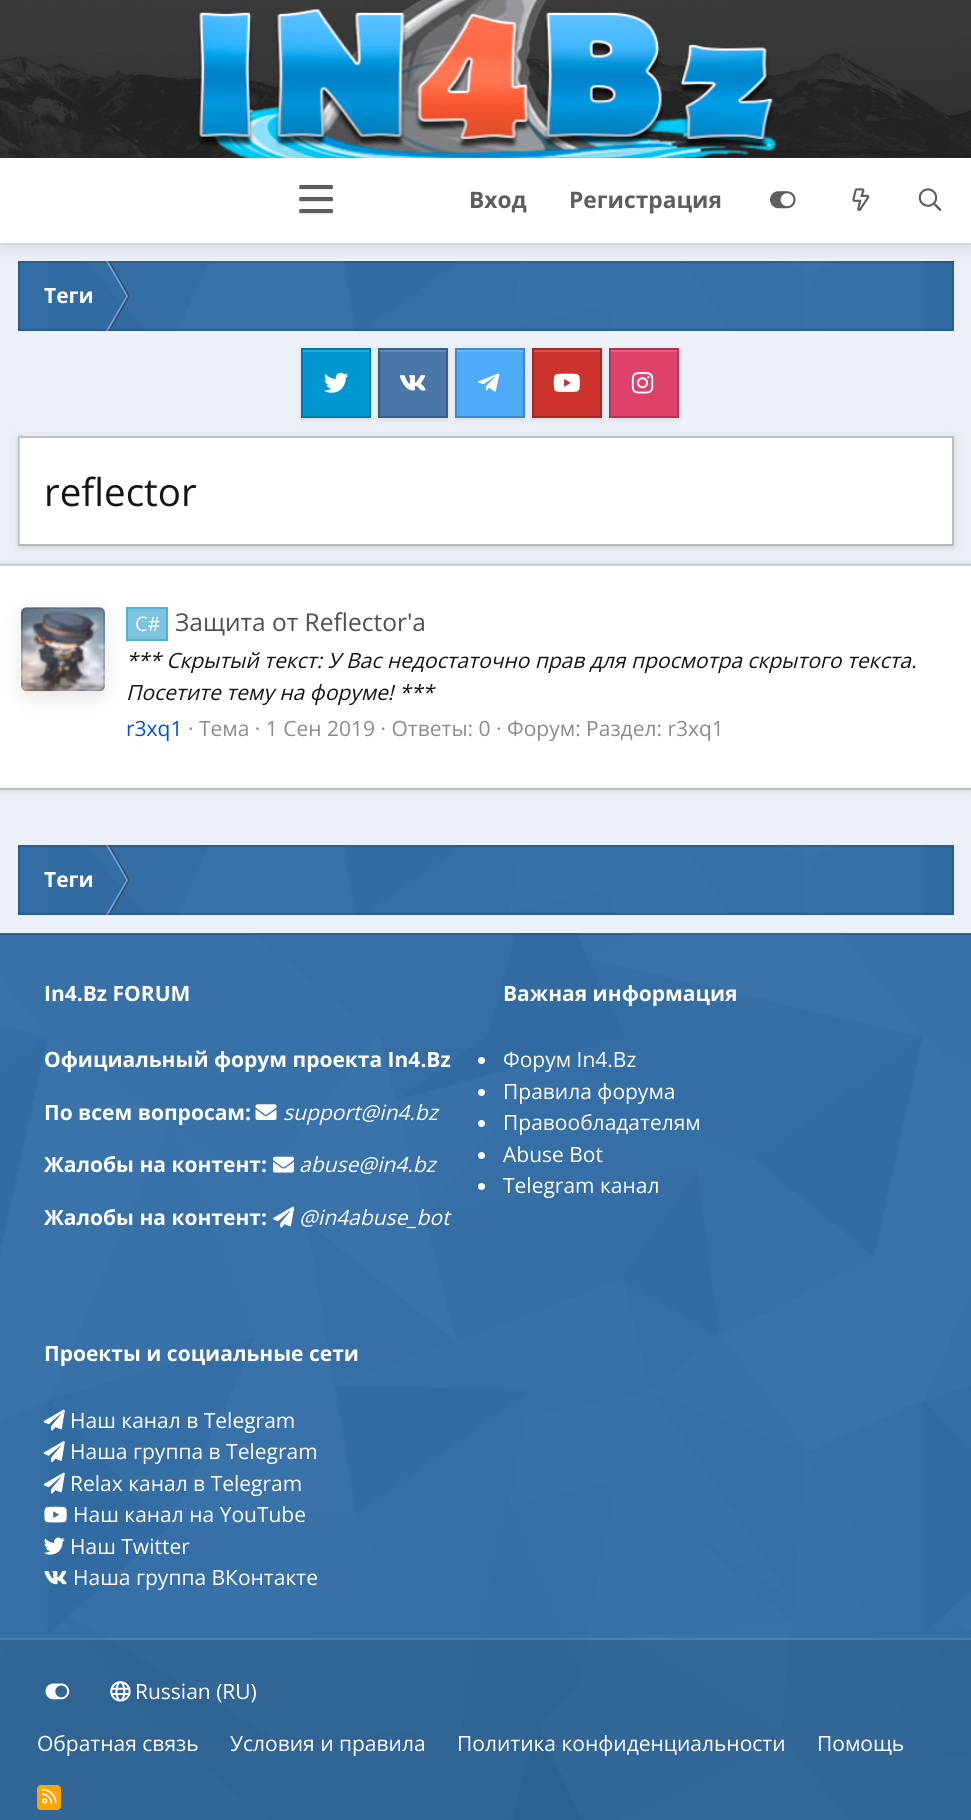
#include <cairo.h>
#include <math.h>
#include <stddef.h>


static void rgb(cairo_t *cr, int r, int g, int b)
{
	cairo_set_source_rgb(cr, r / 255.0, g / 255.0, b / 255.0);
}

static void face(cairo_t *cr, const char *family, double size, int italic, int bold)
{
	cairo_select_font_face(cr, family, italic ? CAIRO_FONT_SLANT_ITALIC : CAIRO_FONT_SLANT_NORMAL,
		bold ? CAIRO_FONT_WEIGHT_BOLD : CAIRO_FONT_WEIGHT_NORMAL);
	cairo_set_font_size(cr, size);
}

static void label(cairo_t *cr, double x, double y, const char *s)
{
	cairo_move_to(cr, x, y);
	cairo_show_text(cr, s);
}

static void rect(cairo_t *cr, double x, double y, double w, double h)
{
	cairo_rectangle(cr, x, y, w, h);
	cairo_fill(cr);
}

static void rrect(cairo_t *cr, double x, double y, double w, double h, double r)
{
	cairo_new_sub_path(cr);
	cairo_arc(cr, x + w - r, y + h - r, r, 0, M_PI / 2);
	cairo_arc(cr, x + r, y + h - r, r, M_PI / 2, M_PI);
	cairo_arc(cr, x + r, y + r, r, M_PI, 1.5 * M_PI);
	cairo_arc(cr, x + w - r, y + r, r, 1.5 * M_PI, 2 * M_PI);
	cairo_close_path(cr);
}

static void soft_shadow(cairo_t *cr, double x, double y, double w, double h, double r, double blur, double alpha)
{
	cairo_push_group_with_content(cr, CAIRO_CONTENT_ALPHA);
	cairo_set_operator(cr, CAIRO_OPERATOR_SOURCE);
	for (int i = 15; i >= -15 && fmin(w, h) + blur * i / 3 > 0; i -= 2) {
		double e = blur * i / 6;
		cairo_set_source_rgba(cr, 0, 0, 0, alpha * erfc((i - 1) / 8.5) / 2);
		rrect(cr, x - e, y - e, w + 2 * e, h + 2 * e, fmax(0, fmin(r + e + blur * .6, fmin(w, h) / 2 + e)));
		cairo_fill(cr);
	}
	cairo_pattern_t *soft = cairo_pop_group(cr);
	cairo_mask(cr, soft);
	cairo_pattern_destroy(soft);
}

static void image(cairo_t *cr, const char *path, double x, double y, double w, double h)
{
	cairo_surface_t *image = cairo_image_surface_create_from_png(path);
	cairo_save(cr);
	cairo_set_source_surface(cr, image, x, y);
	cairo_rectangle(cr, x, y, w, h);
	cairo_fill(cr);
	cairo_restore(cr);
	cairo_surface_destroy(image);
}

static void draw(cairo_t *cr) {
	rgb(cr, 51, 110, 166);
	cairo_paint(cr);
	rgb(cr, 51, 51, 51);
	rect(cr, 0, 157, 971, 1);
	image(cr, "image0.png", 0, 0, 971, 158);
	image(cr, "image1.png", 198, 0, 578, 158);
	rgb(cr, 223, 229, 234);
	rect(cr, 0, 243, 971, 2);
	rgb(cr, 235, 241, 246);
	rect(cr, 0, 245, 971, 688);
	rgb(cr, 51, 110, 166);
	rect(cr, 18, 261, 936, 70);
	image(cr, "image6.png", 48, 261, 905, 70);
	rgb(cr, 133, 168, 200);
	cairo_new_path(cr);
	cairo_move_to(cr, 106, 261);
	cairo_line_to(cr, 108, 261);
	cairo_line_to(cr, 128, 296);
	cairo_line_to(cr, 126.5, 296);
	cairo_close_path(cr);
	cairo_fill(cr);
	cairo_set_source_rgba(cr, 0, 0, 0, 0.25);
	cairo_new_path(cr);
	cairo_move_to(cr, 108, 261);
	cairo_line_to(cr, 109.5, 261);
	cairo_line_to(cr, 130, 296);
	cairo_line_to(cr, 128, 296);
	cairo_close_path(cr);
	cairo_fill(cr);
	cairo_set_source_rgba(cr, 1, 1, 1, 0.4);
	cairo_new_path(cr);
	cairo_move_to(cr, 126.5, 296);
	cairo_line_to(cr, 128, 296);
	cairo_line_to(cr, 108, 331);
	cairo_line_to(cr, 106, 331);
	cairo_close_path(cr);
	cairo_fill(cr);
	cairo_set_source_rgba(cr, 0, 0, 0, 0.25);
	cairo_new_path(cr);
	cairo_move_to(cr, 128, 296);
	cairo_line_to(cr, 130, 296);
	cairo_line_to(cr, 109.5, 331);
	cairo_line_to(cr, 108, 331);
	cairo_close_path(cr);
	cairo_fill(cr);
	cairo_rectangle(cr, 19, 262, 934, 68);
	cairo_set_source_rgba(cr, 0, 0, 0, 0.15);
	cairo_stroke(cr);
	rgb(cr, 0, 0, 0);
	soft_shadow(cr, 0, 161, 971, 86, 0, 9, 0.1);
	rgb(cr, 255, 255, 255);
	rect(cr, 0, 158, 971, 85);
	image(cr, "image2.png", 299, 184, 34, 30);
	face(cr, "Open Sans", 22.75, 0, 1);
	rgb(cr, 94, 94, 94);
	label(cr, 469, 208, "Вход");
	label(cr, 569, 208, "Регистрация");
	image(cr, "image3.png", 770, 191, 26, 18);
	image(cr, "image4.png", 852, 188, 18, 24);
	image(cr, "image5.png", 918, 188, 24, 23);
	rgb(cr, 200, 205, 209);
	rect(cr, 0, 564, 971, 1);
	face(cr, "Open Sans", 21, 0, 1);
	rgb(cr, 255, 255, 255);
	label(cr, 44, 303, "Теги");
	rgb(cr, 0, 0, 0);
	soft_shadow(cr, 301, 350, 70, 70, 0, 2.5, 0.1);
	soft_shadow(cr, 18, 436, 936, 110, 0, 7, 0.06);
	rgb(cr, 0, 151, 211);
	rect(cr, 303, 352, 66, 64);
	rgb(cr, 38, 167, 218);
	rect(cr, 303, 350, 66, 2);
	image(cr, "image7.png", 324, 372, 25, 21);
	cairo_rectangle(cr, 302, 349, 68, 68);
	rgb(cr, 0, 121, 169);
	cairo_stroke(cr);
	rgb(cr, 0, 0, 0);
	soft_shadow(cr, 378, 350, 70, 70, 0, 2.5, 0.1);
	rgb(cr, 74, 118, 168);
	rect(cr, 380, 352, 66, 64);
	rgb(cr, 101, 139, 181);
	rect(cr, 380, 350, 66, 2);
	image(cr, "image8.png", 400, 375, 26, 16);
	cairo_rectangle(cr, 379, 349, 68, 68);
	rgb(cr, 59, 94, 134);
	cairo_stroke(cr);
	rgb(cr, 0, 0, 0);
	soft_shadow(cr, 455, 350, 70, 70, 0, 2.5, 0.1);
	rgb(cr, 77, 171, 247);
	rect(cr, 457, 352, 66, 64);
	rgb(cr, 104, 184, 248);
	rect(cr, 457, 350, 66, 2);
	image(cr, "image9.png", 477, 373, 23, 19);
	cairo_rectangle(cr, 456, 349, 68, 68);
	rgb(cr, 62, 137, 198);
	cairo_stroke(cr);
	rgb(cr, 0, 0, 0);
	soft_shadow(cr, 532, 350, 70, 70, 0, 2.5, 0.1);
	rgb(cr, 204, 51, 45);
	rect(cr, 534, 352, 66, 64);
	rgb(cr, 212, 82, 77);
	rect(cr, 534, 350, 66, 2);
	image(cr, "image10.png", 553, 373, 27, 19);
	cairo_rectangle(cr, 533, 349, 68, 68);
	rgb(cr, 163, 41, 36);
	cairo_stroke(cr);
	rgb(cr, 0, 0, 0);
	soft_shadow(cr, 609, 350, 70, 70, 0, 2.5, 0.1);
	rgb(cr, 222, 65, 106);
	rect(cr, 611, 352, 66, 64);
	rgb(cr, 227, 94, 128);
	rect(cr, 611, 350, 66, 2);
	image(cr, "image11.png", 631, 372, 23, 22);
	cairo_rectangle(cr, 610, 349, 68, 68);
	rgb(cr, 178, 52, 85);
	cairo_stroke(cr);
	rgb(cr, 0, 0, 0);
	soft_shadow(cr, 18, 438, 936, 110, 0, 2.5, 0.08);
	rgb(cr, 255, 255, 255);
	rect(cr, 19, 438, 933, 106);
	cairo_rectangle(cr, 19, 437, 934, 108);
	cairo_set_source_rgba(cr, 0, 0, 0, 0.15);
	cairo_stroke(cr);
	face(cr, "Open Sans", 38.5, 0, 0);
	rgb(cr, 20, 20, 20);
	label(cr, 44, 506, "reflector");
	rgb(cr, 0, 0, 0);
	soft_shadow(cr, 0, 565, 971, 226, 0, 2.5, 0.08);
	soft_shadow(cr, 0, 564, 971, 225, 0, 7, 0.06);
	rgb(cr, 255, 255, 255);
	rect(cr, 0, 566, 971, 222);
	rgb(cr, 217, 217, 217);
	rect(cr, 0, 565, 971, 1);
	cairo_set_source_rgba(cr, 0, 0, 0, 0.15);
	rect(cr, 0, 788, 971, 2);
	rgb(cr, 124, 195, 224);
	cairo_rectangle(cr, 127, 608, 40, 32);
	cairo_fill_preserve(cr);
	rgb(cr, 83, 176, 214);
	cairo_stroke(cr);
	rgb(cr, 0, 0, 0);
	soft_shadow(cr, 21, 613, 84, 84, 5, 9, 0.1);
	rgb(cr, 255, 255, 255);
	rrect(cr, 21, 607, 84, 84, 5);
	cairo_fill(cr);
	image(cr, "image12.png", 21, 607, 84, 85);
	rrect(cr, 22, 608, 82, 82, 4);
	cairo_set_source_rgba(cr, 0.078, 0.078, 0.078, 0.15);
	cairo_stroke(cr);
	face(cr, "Open Sans", 20, 0, 0);
	rgb(cr, 255, 255, 255);
	label(cr, 135, 631, "C#");
	face(cr, "Open Sans", 24.5, 0, 0);
	rgb(cr, 74, 80, 84);
	label(cr, 175, 631, "Защита от Reflector'a");
	face(cr, "Open Sans", 21, 1, 0);
	rgb(cr, 20, 20, 20);
	label(cr, 126, 668, "*** Скрытый текст: У Вас недостаточно прав для просмотра скрытого текста.");
	label(cr, 126, 700, "Посетите тему на форуме! ***");
	face(cr, "Open Sans", 21, 0, 0);
	rgb(cr, 0, 82, 204);
	label(cr, 126, 736, "r3xq1");
	rgb(cr, 140, 140, 140);
	label(cr, 188, 736, "· Тема · 1 Сен 2019 · Ответы: 0 · Форум: Раздел: r3xq1");
	rgb(cr, 51, 110, 166);
	rect(cr, 18, 845, 936, 70);
	image(cr, "image13.png", 48, 846, 905, 70);
	rgb(cr, 133, 168, 200);
	cairo_new_path(cr);
	cairo_move_to(cr, 106, 845);
	cairo_line_to(cr, 108, 845);
	cairo_line_to(cr, 128, 880);
	cairo_line_to(cr, 126.5, 880);
	cairo_close_path(cr);
	cairo_fill(cr);
	cairo_set_source_rgba(cr, 0, 0, 0, 0.25);
	cairo_new_path(cr);
	cairo_move_to(cr, 108, 845);
	cairo_line_to(cr, 109.5, 845);
	cairo_line_to(cr, 130, 880);
	cairo_line_to(cr, 128, 880);
	cairo_close_path(cr);
	cairo_fill(cr);
	cairo_set_source_rgba(cr, 1, 1, 1, 0.4);
	cairo_new_path(cr);
	cairo_move_to(cr, 126.5, 880);
	cairo_line_to(cr, 128, 880);
	cairo_line_to(cr, 108, 915);
	cairo_line_to(cr, 106, 915);
	cairo_close_path(cr);
	cairo_fill(cr);
	cairo_set_source_rgba(cr, 0, 0, 0, 0.25);
	cairo_new_path(cr);
	cairo_move_to(cr, 128, 880);
	cairo_line_to(cr, 130, 880);
	cairo_line_to(cr, 109.5, 915);
	cairo_line_to(cr, 108, 915);
	cairo_close_path(cr);
	cairo_fill(cr);
	cairo_rectangle(cr, 19, 846, 934, 68);
	cairo_set_source_rgba(cr, 0, 0, 0, 0.15);
	cairo_stroke(cr);
	face(cr, "Open Sans", 21, 0, 1);
	rgb(cr, 255, 255, 255);
	label(cr, 44, 887, "Теги");
	image(cr, "image14.png", 0, 933, 971, 887);
	cairo_set_source_rgba(cr, 0, 0, 0, 0.15);
	rect(cr, 0, 933, 971, 2);
	cairo_set_source_rgba(cr, 1, 1, 1, 0.1);
	rect(cr, 0, 1638, 971, 2);
	rgb(cr, 255, 255, 255);
	label(cr, 44, 1001, "In4.Bz FORUM");
	label(cr, 44, 1067, "Официальный форум проекта In4.Bz");
	label(cr, 44, 1120, "По всем вопросам:");
	image(cr, "image15.png", 255, 1104, 22, 16);
	face(cr, "Open Sans", 21, 1, 0);
	label(cr, 283, 1120, "support@in4.bz");
	face(cr, "Open Sans", 21, 0, 1);
	label(cr, 44, 1172, "Жалобы на контент:");
	image(cr, "image16.png", 273, 1156, 21, 17);
	face(cr, "Open Sans", 21, 1, 0);
	label(cr, 299, 1172, "abuse@in4.bz");
	face(cr, "Open Sans", 21, 0, 1);
	label(cr, 44, 1225, "Жалобы на контент:");
	image(cr, "image17.png", 273, 1206, 21, 22);
	face(cr, "Open Sans", 21, 1, 0);
	label(cr, 299, 1225, "@in4abuse_bot");
	face(cr, "Open Sans", 21, 0, 1);
	label(cr, 503, 1001, "Важная информация");
	cairo_new_path(cr);
	cairo_arc(cr, 481.5, 1060.5, 3.5, 0, 2 * M_PI);
	cairo_fill(cr);
	face(cr, "Open Sans", 21, 0, 0);
	label(cr, 503, 1067, "Форум In4.Bz");
	cairo_new_path(cr);
	cairo_arc(cr, 481.5, 1092.5, 3.5, 0, 2 * M_PI);
	cairo_fill(cr);
	label(cr, 503, 1099, "Правила форума");
	cairo_new_path(cr);
	cairo_arc(cr, 481.5, 1123.5, 3.5, 0, 2 * M_PI);
	cairo_fill(cr);
	label(cr, 503, 1130, "Правообладателям");
	cairo_new_path(cr);
	cairo_arc(cr, 481.5, 1155.5, 3.5, 0, 2 * M_PI);
	cairo_fill(cr);
	label(cr, 503, 1162, "Abuse Bot");
	cairo_new_path(cr);
	cairo_arc(cr, 481.5, 1186.5, 3.5, 0, 2 * M_PI);
	cairo_fill(cr);
	label(cr, 503, 1193, "Telegram канал");
	face(cr, "Open Sans", 21, 0, 1);
	label(cr, 44, 1361, "Проекты и социальные сети");
	image(cr, "image18.png", 43, 1409, 22, 22);
	face(cr, "Open Sans", 21, 0, 0);
	label(cr, 70, 1428, "Наш канал в Telegram");
	image(cr, "image19.png", 43, 1441, 22, 22);
	label(cr, 70, 1459, "Наша группа в Telegram");
	image(cr, "image20.png", 43, 1472, 22, 22);
	label(cr, 70, 1491, "Relax канал в Telegram");
	image(cr, "image21.png", 44, 1506, 23, 17);
	label(cr, 73, 1522, "Наш канал на YouTube");
	image(cr, "image22.png", 44, 1537, 21, 18);
	label(cr, 70, 1554, "Наш Twitter");
	image(cr, "image23.png", 44, 1571, 23, 14);
	label(cr, 73, 1585, "Наша группа ВКонтакте");
	cairo_set_source_rgba(cr, 0, 0, 0, 0.1);
	rect(cr, 0, 1640, 971, 180);
	image(cr, "image24.png", 45, 1683, 25, 17);
	image(cr, "image25.png", 110, 1681, 21, 21);
	rgb(cr, 255, 255, 255);
	label(cr, 135, 1699, "Russian (RU)");
	label(cr, 37, 1751, "Обратная связь");
	label(cr, 230, 1751, "Условия и правила");
	label(cr, 457, 1751, "Политика конфиденциальности");
	label(cr, 817, 1751, "Помощь");
	rgb(cr, 255, 165, 0);
	rrect(cr, 37, 1785, 24, 25, 4);
	cairo_fill(cr);
	image(cr, "image26.png", 42, 1788, 15, 16);
}

int main(void) {
	cairo_surface_t *surface = cairo_image_surface_create(CAIRO_FORMAT_RGB24, 971, 1820);
	cairo_t *cr = cairo_create(surface);
	cairo_font_options_t *options = cairo_font_options_create();
	cairo_font_options_set_hint_metrics(options, CAIRO_HINT_METRICS_OFF);
	cairo_font_options_set_hint_style(options, CAIRO_HINT_STYLE_NONE);
	cairo_set_font_options(cr, options);
	cairo_set_miter_limit(cr, 4);
	draw(cr);
	cairo_surface_write_to_png(surface, "render.png");
	cairo_font_options_destroy(options);
	cairo_destroy(cr);
	cairo_surface_destroy(surface);
	return 0;
}
